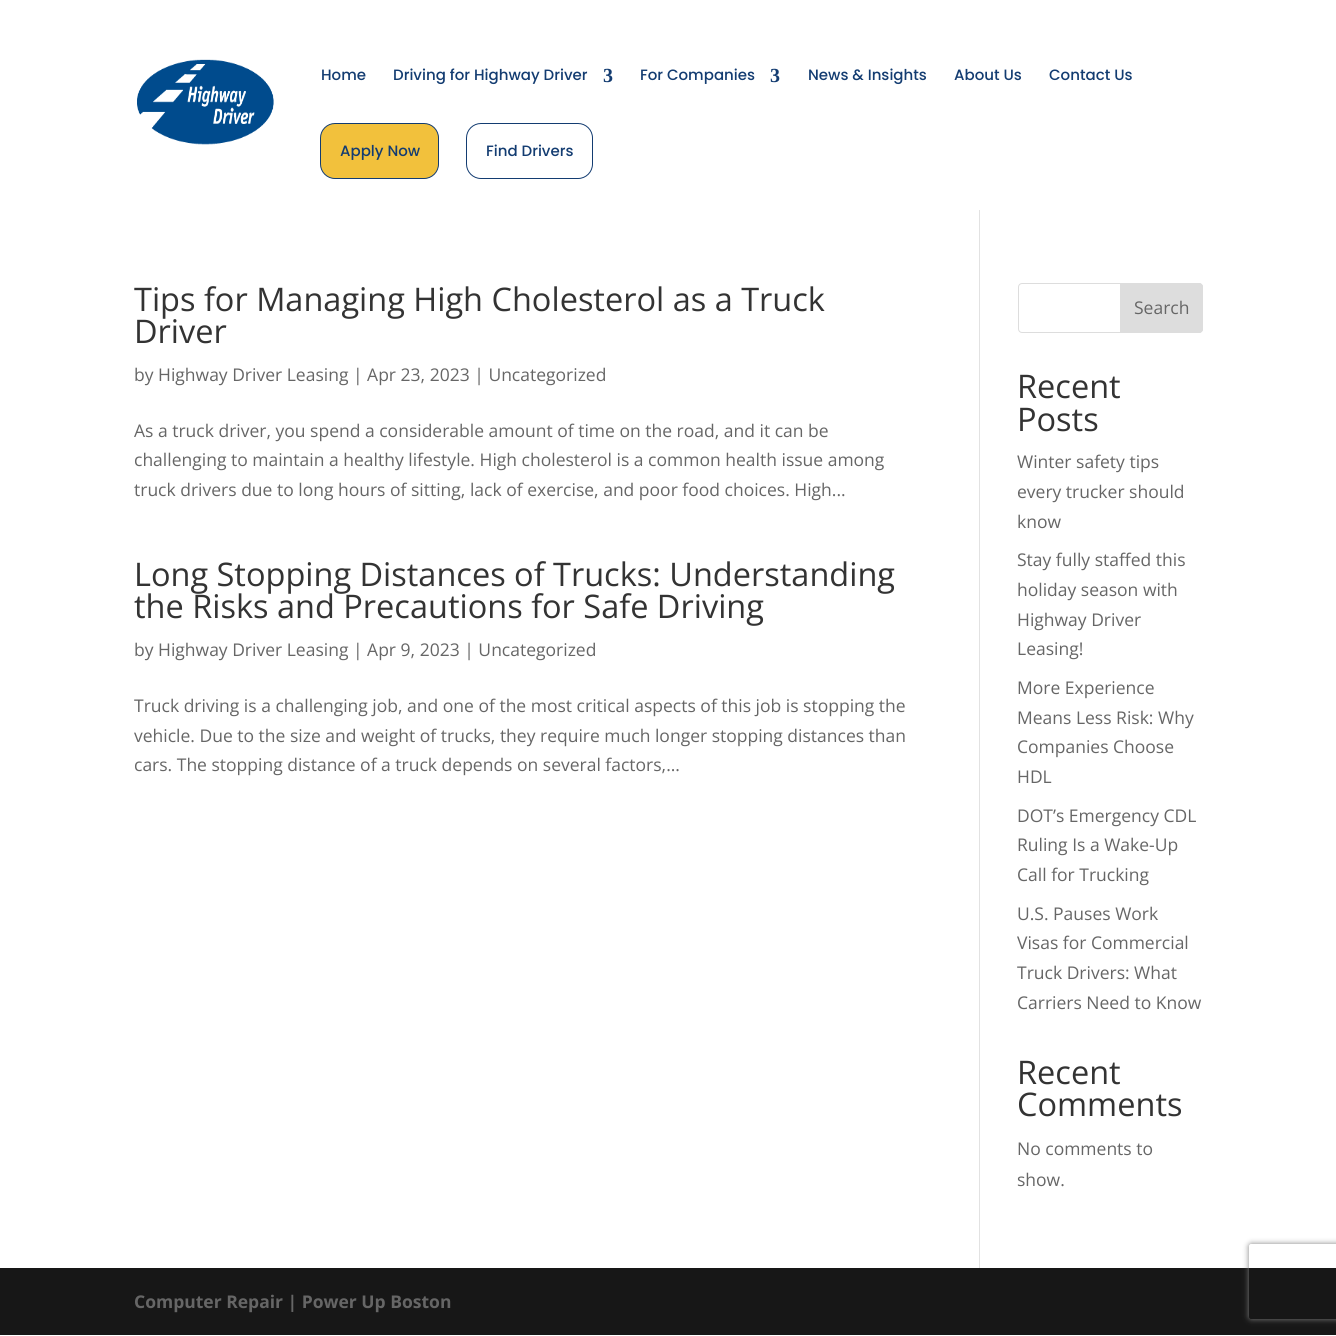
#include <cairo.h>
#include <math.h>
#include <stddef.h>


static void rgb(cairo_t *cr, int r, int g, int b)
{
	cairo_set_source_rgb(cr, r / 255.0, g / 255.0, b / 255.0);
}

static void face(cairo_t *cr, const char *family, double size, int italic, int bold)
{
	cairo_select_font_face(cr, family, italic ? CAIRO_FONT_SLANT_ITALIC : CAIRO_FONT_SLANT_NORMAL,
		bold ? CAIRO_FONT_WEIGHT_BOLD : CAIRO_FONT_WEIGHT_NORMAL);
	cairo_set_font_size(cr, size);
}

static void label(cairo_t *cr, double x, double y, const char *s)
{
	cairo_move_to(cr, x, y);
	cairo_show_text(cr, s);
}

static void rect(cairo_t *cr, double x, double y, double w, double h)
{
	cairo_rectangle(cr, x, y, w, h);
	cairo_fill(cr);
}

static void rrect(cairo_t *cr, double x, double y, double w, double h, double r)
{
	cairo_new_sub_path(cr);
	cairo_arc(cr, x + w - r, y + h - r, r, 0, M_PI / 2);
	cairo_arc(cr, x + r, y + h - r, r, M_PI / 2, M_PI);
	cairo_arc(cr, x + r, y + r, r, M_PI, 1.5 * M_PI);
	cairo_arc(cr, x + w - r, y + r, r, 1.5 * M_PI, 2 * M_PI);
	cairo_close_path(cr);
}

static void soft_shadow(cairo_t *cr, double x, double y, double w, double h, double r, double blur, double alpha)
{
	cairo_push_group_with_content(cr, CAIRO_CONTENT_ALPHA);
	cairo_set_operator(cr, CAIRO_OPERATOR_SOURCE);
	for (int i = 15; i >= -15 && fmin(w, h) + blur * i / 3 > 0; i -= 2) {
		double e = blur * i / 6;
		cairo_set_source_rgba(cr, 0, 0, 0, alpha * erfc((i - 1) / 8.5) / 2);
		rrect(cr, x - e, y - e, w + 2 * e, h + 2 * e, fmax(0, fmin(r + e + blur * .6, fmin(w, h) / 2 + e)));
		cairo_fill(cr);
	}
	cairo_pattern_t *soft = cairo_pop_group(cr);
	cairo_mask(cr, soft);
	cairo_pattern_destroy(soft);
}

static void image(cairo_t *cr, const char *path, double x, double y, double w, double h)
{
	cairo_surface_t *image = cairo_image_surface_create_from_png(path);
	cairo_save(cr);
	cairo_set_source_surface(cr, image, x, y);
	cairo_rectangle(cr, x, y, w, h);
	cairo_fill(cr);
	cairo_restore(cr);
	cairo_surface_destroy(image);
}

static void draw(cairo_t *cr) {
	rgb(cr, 255, 255, 255);
	cairo_paint(cr);
	image(cr, "image0.png", 137, 59, 137, 86);
	face(cr, "Poppins Medium", 15, 0, 0);
	rgb(cr, 19, 60, 113);
	label(cr, 321, 80, "Home");
	label(cr, 393, 80, "Driving for Highway Driver");
	face(cr, "Liberation Serif", 20, 0, 1);
	label(cr, 603, 82, "3");
	face(cr, "Poppins Medium", 15, 0, 0);
	label(cr, 640, 80, "For Companies");
	face(cr, "Liberation Serif", 20, 0, 1);
	label(cr, 770, 82, "3");
	face(cr, "Poppins Medium", 15, 0, 0);
	label(cr, 808, 80, "News & Insights");
	label(cr, 954, 80, "About Us");
	label(cr, 1049, 80, "Contact Us");
	rgb(cr, 242, 193, 60);
	rrect(cr, 320.5, 123.5, 118, 55, 14.5);
	cairo_fill_preserve(cr);
	rgb(cr, 19, 60, 113);
	cairo_set_line_width(cr, 1);
	cairo_stroke(cr);
	label(cr, 340, 156, "Apply Now");
	rrect(cr, 466.5, 123.5, 126, 55, 14.5);
	cairo_stroke(cr);
	label(cr, 486, 156, "Find Drivers");
	rgb(cr, 226, 226, 226);
	rect(cr, 979, 210, 1, 1058);
	face(cr, "Open Sans", 32.5, 0, 0);
	rgb(cr, 51, 51, 51);
	label(cr, 134, 311, "Tips for Managing High Cholesterol as a Truck");
	label(cr, 134, 343, "Driver");
	face(cr, "Open Sans", 17.5, 0, 0);
	rgb(cr, 102, 102, 102);
	label(cr, 134, 381, "by Highway Driver Leasing | Apr 23, 2023 | Uncategorized");
	label(cr, 134, 437, "As a truck driver, you spend a considerable amount of time on the road, and it can be");
	label(cr, 134, 466, "challenging to maintain a healthy lifestyle. High cholesterol is a common health issue among");
	label(cr, 134, 496, "truck drivers due to long hours of sitting, lack of exercise, and poor food choices. High...");
	face(cr, "Open Sans", 32.5, 0, 0);
	rgb(cr, 51, 51, 51);
	label(cr, 134, 586, "Long Stopping Distances of Trucks: Understanding");
	label(cr, 134, 618, "the Risks and Precautions for Safe Driving");
	face(cr, "Open Sans", 17.5, 0, 0);
	rgb(cr, 102, 102, 102);
	label(cr, 134, 656, "by Highway Driver Leasing | Apr 9, 2023 | Uncategorized");
	label(cr, 134, 712, "Truck driving is a challenging job, and one of the most critical aspects of this job is stopping the");
	label(cr, 134, 742, "vehicle. Due to the size and weight of trucks, they require much longer stopping distances than");
	label(cr, 134, 771, "cars. The stopping distance of a truck depends on several factors,...");
	rrect(cr, 1018.5, 283.5, 184, 49, 3.5);
	rgb(cr, 221, 221, 221);
	cairo_stroke(cr);
	cairo_new_path(cr);
	cairo_move_to(cr, 1120.5, 283.5);
	cairo_line_to(cr, 1199, 283.5);
	cairo_curve_to(cr, 1201, 283.5, 1202.5, 285, 1202.5, 287);
	cairo_line_to(cr, 1202.5, 329);
	cairo_curve_to(cr, 1202.5, 331, 1201, 332.5, 1199, 332.5);
	cairo_line_to(cr, 1120.5, 332.5);
	cairo_close_path(cr);
	cairo_fill_preserve(cr);
	cairo_stroke(cr);
	rgb(cr, 102, 102, 102);
	label(cr, 1134, 314, "Search");
	face(cr, "Open Sans", 32.5, 0, 0);
	rgb(cr, 51, 51, 51);
	label(cr, 1017, 398, "Recent");
	label(cr, 1017, 431, "Posts");
	face(cr, "Open Sans", 17.5, 0, 0);
	rgb(cr, 102, 102, 102);
	label(cr, 1017, 468, "Winter safety tips");
	label(cr, 1017, 498, "every trucker should");
	label(cr, 1017, 528, "know");
	label(cr, 1017, 566, "Stay fully staffed this");
	label(cr, 1017, 596, "holiday season with");
	label(cr, 1017, 626, "Highway Driver");
	label(cr, 1017, 655, "Leasing!");
	label(cr, 1017, 694, "More Experience");
	label(cr, 1017, 724, "Means Less Risk: Why");
	label(cr, 1017, 753, "Companies Choose");
	label(cr, 1017, 783, "HDL");
	label(cr, 1017, 822, "DOT’s Emergency CDL");
	label(cr, 1017, 851, "Ruling Is a Wake-Up");
	label(cr, 1017, 881, "Call for Trucking");
	label(cr, 1017, 920, "U.S. Pauses Work");
	label(cr, 1017, 949, "Visas for Commercial");
	label(cr, 1017, 979, "Truck Drivers: What");
	label(cr, 1017, 1009, "Carriers Need to Know");
	face(cr, "Open Sans", 32.5, 0, 0);
	rgb(cr, 51, 51, 51);
	label(cr, 1017, 1084, "Recent");
	label(cr, 1017, 1116, "Comments");
	face(cr, "Open Sans", 17.5, 0, 0);
	rgb(cr, 102, 102, 102);
	label(cr, 1017, 1155, "No comments to");
	label(cr, 1017, 1186, "show.");
	rgb(cr, 23, 23, 23);
	rect(cr, 0, 1268, 1336, 67);
	face(cr, "Open Sans", 17.5, 0, 1);
	rgb(cr, 102, 102, 102);
	label(cr, 134, 1308, "Computer Repair | Power Up Boston");
	cairo_save(cr);
	cairo_set_fill_rule(cr, CAIRO_FILL_RULE_EVEN_ODD);
	cairo_new_path(cr);
	cairo_move_to(cr, 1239, 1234);
	cairo_line_to(cr, 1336, 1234);
	cairo_line_to(cr, 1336, 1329);
	cairo_line_to(cr, 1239, 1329);
	cairo_close_path(cr);
	cairo_move_to(cr, 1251.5, 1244);
	cairo_line_to(cr, 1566.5, 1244);
	cairo_curve_to(cr, 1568, 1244, 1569, 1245, 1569, 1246.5);
	cairo_line_to(cr, 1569, 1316.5);
	cairo_curve_to(cr, 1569, 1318, 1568, 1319, 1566.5, 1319);
	cairo_line_to(cr, 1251.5, 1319);
	cairo_curve_to(cr, 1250, 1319, 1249, 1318, 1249, 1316.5);
	cairo_line_to(cr, 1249, 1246.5);
	cairo_curve_to(cr, 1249, 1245, 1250, 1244, 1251.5, 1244);
	cairo_close_path(cr);
	cairo_clip(cr);
	rgb(cr, 128, 128, 128);
	soft_shadow(cr, 1249, 1244, 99, 75, 2.5, 3, 1);
	cairo_restore(cr);
}

int main(void) {
	cairo_surface_t *surface = cairo_image_surface_create(CAIRO_FORMAT_RGB24, 1336, 1336);
	cairo_t *cr = cairo_create(surface);
	cairo_font_options_t *options = cairo_font_options_create();
	cairo_font_options_set_hint_metrics(options, CAIRO_HINT_METRICS_OFF);
	cairo_font_options_set_hint_style(options, CAIRO_HINT_STYLE_NONE);
	cairo_set_font_options(cr, options);
	cairo_set_miter_limit(cr, 4);
	draw(cr);
	cairo_surface_write_to_png(surface, "render.png");
	cairo_font_options_destroy(options);
	cairo_destroy(cr);
	cairo_surface_destroy(surface);
	return 0;
}
